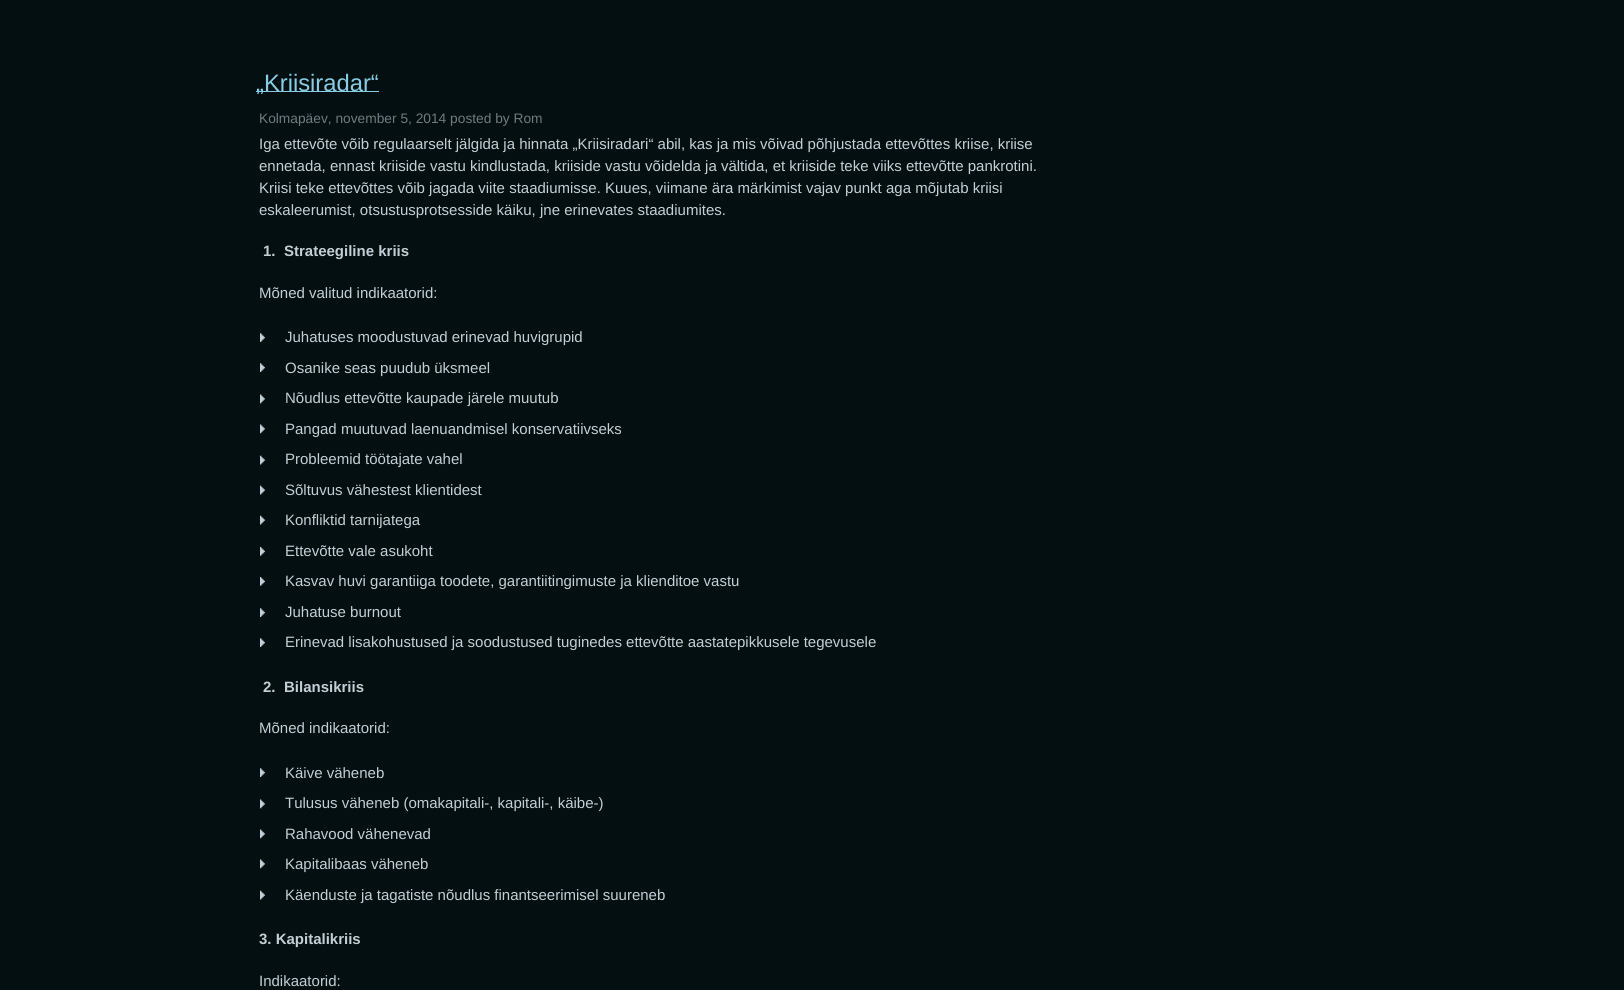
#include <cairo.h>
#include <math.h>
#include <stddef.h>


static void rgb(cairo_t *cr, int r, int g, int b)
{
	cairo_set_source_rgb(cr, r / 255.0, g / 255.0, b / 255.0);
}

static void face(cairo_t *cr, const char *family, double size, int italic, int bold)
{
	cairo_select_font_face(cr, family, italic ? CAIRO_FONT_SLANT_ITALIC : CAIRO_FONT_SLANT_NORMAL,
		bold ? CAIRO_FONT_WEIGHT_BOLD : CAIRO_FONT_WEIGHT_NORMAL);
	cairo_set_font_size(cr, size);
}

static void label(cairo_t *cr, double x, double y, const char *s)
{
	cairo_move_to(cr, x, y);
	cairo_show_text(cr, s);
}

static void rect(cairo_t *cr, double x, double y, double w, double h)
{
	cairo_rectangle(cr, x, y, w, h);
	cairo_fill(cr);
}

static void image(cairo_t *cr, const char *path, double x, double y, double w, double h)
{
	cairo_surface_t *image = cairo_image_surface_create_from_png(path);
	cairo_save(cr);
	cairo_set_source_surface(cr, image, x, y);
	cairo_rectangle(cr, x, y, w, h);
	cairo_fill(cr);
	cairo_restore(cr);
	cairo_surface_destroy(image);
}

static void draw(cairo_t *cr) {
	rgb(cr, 4, 15, 18);
	cairo_paint(cr);
	rgb(cr, 135, 206, 229);
	rect(cr, 256, 91, 123, 1);
	face(cr, "Liberation Sans", 23.75, 0, 0);
	label(cr, 256, 91, "„Kriisiradar“");
	face(cr, "Liberation Sans", 13.75, 0, 0);
	rgb(cr, 113, 122, 128);
	label(cr, 259, 123, "Kolmapäev, november 5, 2014 posted by Rom");
	face(cr, "Liberation Sans", 15, 0, 0);
	rgb(cr, 196, 206, 213);
	label(cr, 259, 149, "Iga ettevõte võib regulaarselt jälgida ja hinnata „Kriisiradari“ abil, kas ja mis võivad põhjustada ettevõttes kriise, kriise");
	label(cr, 259, 171, "ennetada, ennast kriiside vastu kindlustada, kriiside vastu võidelda ja vältida, et kriiside teke viiks ettevõtte pankrotini.");
	label(cr, 259, 193, "Kriisi teke ettevõttes võib jagada viite staadiumisse. Kuues, viimane ära märkimist vajav punkt aga mõjutab kriisi");
	label(cr, 259, 215, "eskaleerumist, otsustusprotsesside käiku, jne erinevates staadiumites.");
	face(cr, "Liberation Sans", 15, 0, 1);
	label(cr, 263, 256, "1.");
	label(cr, 284, 256, "Strateegiline kriis");
	face(cr, "Liberation Sans", 15, 0, 0);
	label(cr, 259, 298, "Mõned valitud indikaatorid:");
	image(cr, "image0.png", 260, 333, 5, 9);
	label(cr, 285, 342, "Juhatuses moodustuvad erinevad huvigrupid");
	image(cr, "image0.png", 260, 363, 5, 9);
	label(cr, 285, 373, "Osanike seas puudub üksmeel");
	image(cr, "image1.png", 260, 394, 5, 10);
	label(cr, 285, 403, "Nõudlus ettevõtte kaupade järele muutub");
	image(cr, "image1.png", 260, 424, 5, 10);
	label(cr, 285, 434, "Pangad muutuvad laenuandmisel konservatiivseks");
	image(cr, "image2.png", 260, 455, 5, 10);
	label(cr, 285, 464, "Probleemid töötajate vahel");
	image(cr, "image2.png", 260, 485, 5, 10);
	label(cr, 285, 495, "Sõltuvus vähestest klientidest");
	image(cr, "image2.png", 260, 515, 5, 10);
	label(cr, 285, 525, "Konfliktid tarnijatega");
	image(cr, "image3.png", 260, 547, 5, 9);
	label(cr, 285, 556, "Ettevõtte vale asukoht");
	image(cr, "image3.png", 260, 577, 5, 9);
	label(cr, 285, 586, "Kasvav huvi garantiiga toodete, garantiitingimuste ja klienditoe vastu");
	image(cr, "image0.png", 260, 608, 5, 9);
	label(cr, 285, 617, "Juhatuse burnout");
	image(cr, "image0.png", 260, 638, 5, 9);
	label(cr, 285, 647, "Erinevad lisakohustused ja soodustused tuginedes ettevõtte aastatepikkusele tegevusele");
	face(cr, "Liberation Sans", 15, 0, 1);
	label(cr, 263, 692, "2.");
	label(cr, 284, 692, "Bilansikriis");
	face(cr, "Liberation Sans", 15, 0, 0);
	label(cr, 259, 733, "Mõned indikaatorid:");
	image(cr, "image0.png", 260, 768, 5, 9);
	label(cr, 285, 778, "Käive väheneb");
	image(cr, "image1.png", 260, 799, 5, 10);
	label(cr, 285, 808, "Tulusus väheneb (omakapitali-, kapitali-, käibe-)");
	image(cr, "image1.png", 260, 829, 5, 10);
	label(cr, 285, 839, "Rahavood vähenevad");
	image(cr, "image4.png", 260, 859, 5, 10);
	label(cr, 285, 869, "Kapitalibaas väheneb");
	image(cr, "image2.png", 260, 890, 5, 10);
	label(cr, 285, 900, "Käenduste ja tagatiste nõudlus finantseerimisel suureneb");
	face(cr, "Liberation Sans", 15, 0, 1);
	label(cr, 259, 944, "3. Kapitalikriis");
	face(cr, "Liberation Sans", 15, 0, 0);
	label(cr, 259, 986, "Indikaatorid:");
}

int main(void) {
	cairo_surface_t *surface = cairo_image_surface_create(CAIRO_FORMAT_RGB24, 1624, 990);
	cairo_t *cr = cairo_create(surface);
	cairo_font_options_t *options = cairo_font_options_create();
	cairo_font_options_set_hint_metrics(options, CAIRO_HINT_METRICS_OFF);
	cairo_font_options_set_hint_style(options, CAIRO_HINT_STYLE_NONE);
	cairo_set_font_options(cr, options);
	cairo_set_miter_limit(cr, 4);
	draw(cr);
	cairo_surface_write_to_png(surface, "render.png");
	cairo_font_options_destroy(options);
	cairo_destroy(cr);
	cairo_surface_destroy(surface);
	return 0;
}
